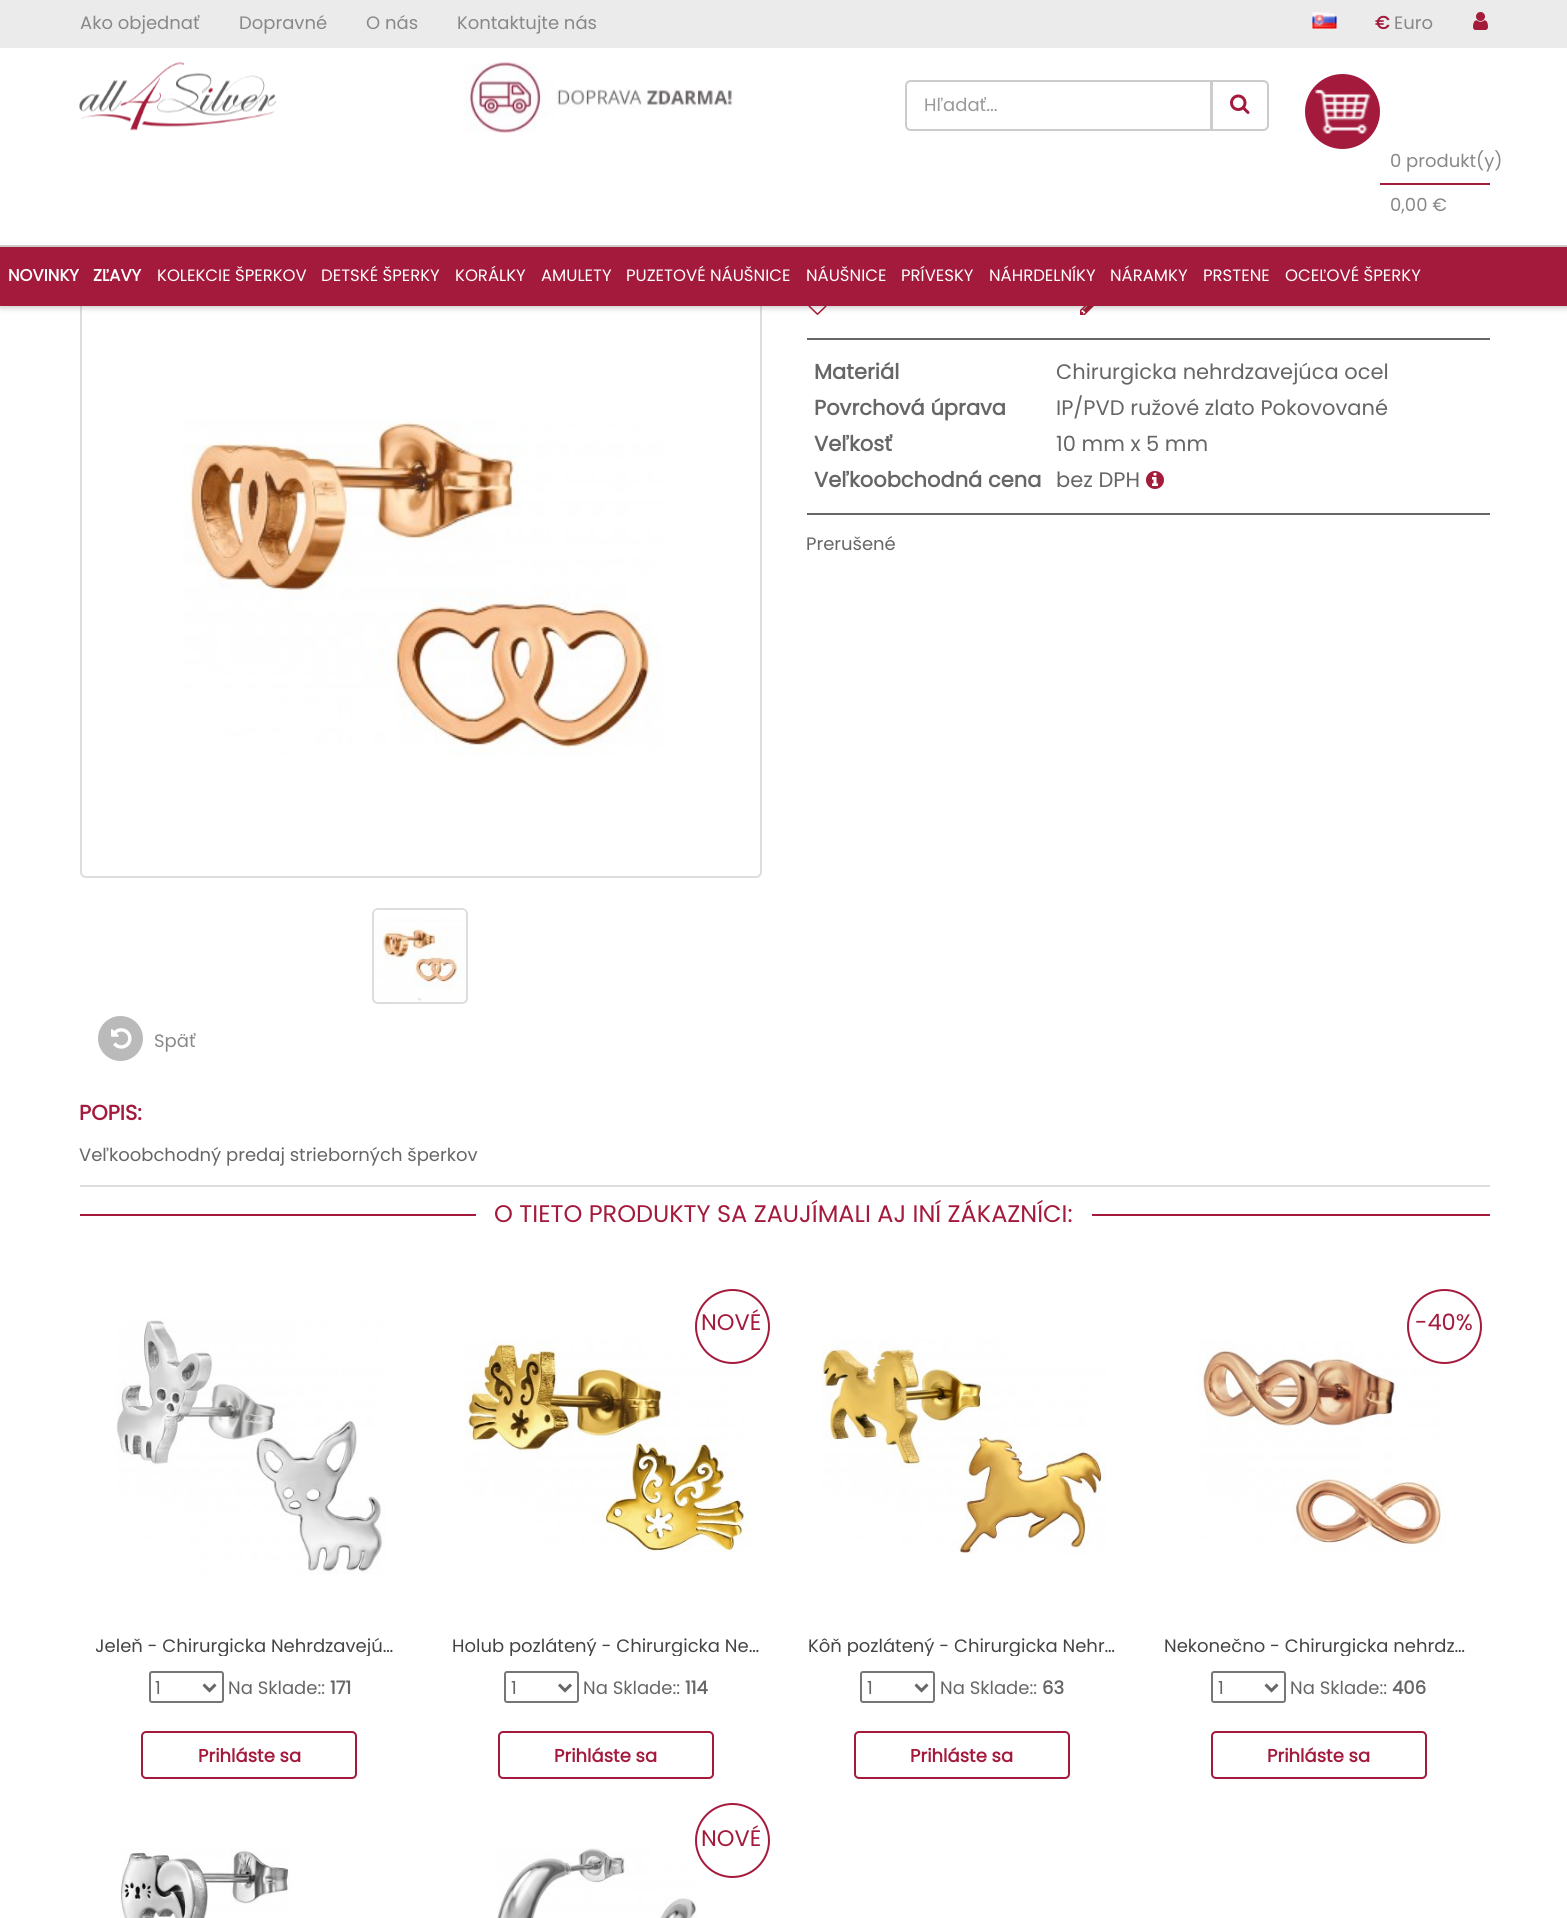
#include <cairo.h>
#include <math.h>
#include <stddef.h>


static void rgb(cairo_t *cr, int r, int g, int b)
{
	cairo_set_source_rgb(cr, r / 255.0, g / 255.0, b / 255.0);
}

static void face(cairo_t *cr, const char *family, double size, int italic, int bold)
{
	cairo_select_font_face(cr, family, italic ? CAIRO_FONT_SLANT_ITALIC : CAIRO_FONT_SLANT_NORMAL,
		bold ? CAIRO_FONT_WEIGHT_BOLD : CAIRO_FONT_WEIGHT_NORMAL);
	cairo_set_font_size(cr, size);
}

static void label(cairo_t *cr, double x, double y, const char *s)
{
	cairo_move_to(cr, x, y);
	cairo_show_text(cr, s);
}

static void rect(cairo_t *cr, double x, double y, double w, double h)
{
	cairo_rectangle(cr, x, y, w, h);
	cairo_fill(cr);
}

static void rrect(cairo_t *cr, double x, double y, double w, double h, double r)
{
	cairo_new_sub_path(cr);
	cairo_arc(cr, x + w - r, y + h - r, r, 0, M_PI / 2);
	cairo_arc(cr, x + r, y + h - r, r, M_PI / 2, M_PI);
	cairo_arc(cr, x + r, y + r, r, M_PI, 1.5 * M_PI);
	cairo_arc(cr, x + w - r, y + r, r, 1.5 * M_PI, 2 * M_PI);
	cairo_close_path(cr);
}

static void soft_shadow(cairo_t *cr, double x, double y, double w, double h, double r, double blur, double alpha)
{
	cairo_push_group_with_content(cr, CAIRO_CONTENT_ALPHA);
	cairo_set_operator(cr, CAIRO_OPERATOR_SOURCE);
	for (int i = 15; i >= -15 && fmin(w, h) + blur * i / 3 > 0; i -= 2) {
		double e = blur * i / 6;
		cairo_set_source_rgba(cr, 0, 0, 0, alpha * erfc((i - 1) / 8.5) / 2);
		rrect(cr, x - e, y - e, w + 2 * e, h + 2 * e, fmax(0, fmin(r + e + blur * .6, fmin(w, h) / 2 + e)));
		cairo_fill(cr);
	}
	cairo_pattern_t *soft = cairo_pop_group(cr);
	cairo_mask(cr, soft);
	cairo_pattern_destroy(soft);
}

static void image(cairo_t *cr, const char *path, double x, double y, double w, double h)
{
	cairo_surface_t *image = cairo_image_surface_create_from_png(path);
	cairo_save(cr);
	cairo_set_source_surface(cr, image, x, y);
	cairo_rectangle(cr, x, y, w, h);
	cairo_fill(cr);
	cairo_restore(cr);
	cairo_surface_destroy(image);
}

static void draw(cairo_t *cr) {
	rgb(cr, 255, 255, 255);
	cairo_paint(cr);
	rrect(cr, 81, 294, 680, 583, 5);
	rgb(cr, 221, 221, 221);
	cairo_stroke(cr);
	image(cr, "image8.png", 808, 306, 19, 9);
	image(cr, "image9.png", 1080, 306, 14, 9);
	rgb(cr, 0, 0, 0);
	soft_shadow(cr, 0, 2, 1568, 306, 0, 3, 0.2);
	rgb(cr, 255, 255, 255);
	rect(cr, 0, 48, 1567, 197);
	rgb(cr, 236, 235, 235);
	rect(cr, 0, 0, 1567, 48);
	face(cr, "Poppins", 18, 0, 0);
	rgb(cr, 136, 136, 136);
	label(cr, 80, 29, "Ako objednať");
	label(cr, 239, 29, "Dopravné");
	label(cr, 366, 29, "O nás");
	label(cr, 457, 29, "Kontaktujte nás");
	image(cr, "image0.png", 1312, 12, 25, 17);
	face(cr, "Poppins", 18, 0, 1);
	rgb(cr, 164, 26, 60);
	label(cr, 1375, 29, "€");
	face(cr, "Poppins", 18, 0, 0);
	rgb(cr, 136, 136, 136);
	label(cr, 1394, 29, "Euro");
	image(cr, "image1.png", 1473, 12, 15, 18);
	image(cr, "image2.png", 79, 62, 197, 69);
	image(cr, "image3.png", 464, 62, 270, 71);
	cairo_new_path(cr);
	cairo_move_to(cr, 911, 81);
	cairo_line_to(cr, 1211, 81);
	cairo_line_to(cr, 1211, 130);
	cairo_line_to(cr, 911, 130);
	cairo_curve_to(cr, 908, 130, 906, 128, 906, 125);
	cairo_line_to(cr, 906, 86);
	cairo_curve_to(cr, 906, 83, 908, 81, 911, 81);
	cairo_close_path(cr);
	rgb(cr, 204, 204, 204);
	cairo_stroke(cr);
	rgb(cr, 153, 153, 153);
	label(cr, 924, 111, "Hľadať...");
	rgb(cr, 255, 255, 255);
	cairo_new_path(cr);
	cairo_move_to(cr, 1212, 81);
	cairo_line_to(cr, 1263, 81);
	cairo_curve_to(cr, 1266, 81, 1268, 83, 1268, 86);
	cairo_line_to(cr, 1268, 125);
	cairo_curve_to(cr, 1268, 128, 1266, 130, 1263, 130);
	cairo_line_to(cr, 1212, 130);
	cairo_close_path(cr);
	cairo_fill_preserve(cr);
	rgb(cr, 204, 204, 204);
	cairo_stroke(cr);
	image(cr, "image4.png", 1230, 94, 20, 20);
	rgb(cr, 164, 26, 60);
	cairo_arc(cr, 1342.5, 111.5, 37.5, 0, 2 * M_PI);
	cairo_fill(cr);
	image(cr, "image5.png", 1314, 89, 57, 45);
	rgb(cr, 136, 136, 136);
	label(cr, 1390, 167, "0 produkt(y)");
	rgb(cr, 164, 26, 60);
	rect(cr, 1380, 183, 110, 2);
	rgb(cr, 136, 136, 136);
	label(cr, 1390, 211, "0,00 €");
	rgb(cr, 164, 26, 60);
	rect(cr, 0, 247, 1567, 59);
	rgb(cr, 204, 204, 204);
	rect(cr, 0, 245, 1567, 2);
	face(cr, "Poppins", 16.5, 0, 1);
	rgb(cr, 255, 255, 255);
	label(cr, 8, 281, "NOVINKY");
	label(cr, 93, 281, "ZĽAVY");
	face(cr, "Poppins", 16.5, 0, 0);
	label(cr, 157, 281, "KOLEKCIE ŠPERKOV");
	label(cr, 321, 281, "DETSKÉ ŠPERKY");
	label(cr, 455, 281, "KORÁLKY");
	label(cr, 541, 281, "AMULETY");
	label(cr, 626, 281, "PUZETOVÉ NÁUŠNICE");
	label(cr, 806, 281, "NÁUŠNICE");
	label(cr, 901, 281, "PRÍVESKY");
	label(cr, 989, 281, "NÁHRDELNÍKY");
	label(cr, 1110, 281, "NÁRAMKY");
	label(cr, 1203, 281, "PRSTENE");
	label(cr, 1285, 281, "OCEĽOVÉ ŠPERKY");
	image(cr, "image6.png", 183, 419, 480, 337);
	rrect(cr, 373, 909, 94, 94, 5);
	rgb(cr, 221, 221, 221);
	cairo_stroke(cr);
	image(cr, "image7.png", 375, 910, 90, 91);
	rgb(cr, 102, 102, 102);
	rect(cr, 807, 338, 683, 2);
	face(cr, "Poppins", 21, 0, 1);
	label(cr, 814, 379, "Materiál");
	face(cr, "Poppins", 21, 0, 0);
	label(cr, 1056, 379, "Chirurgicka nehrdzavejúca ocel");
	face(cr, "Poppins", 21, 0, 1);
	label(cr, 814, 415, "Povrchová úprava");
	face(cr, "Poppins", 21, 0, 0);
	label(cr, 1056, 415, "IP/PVD ružové zlato Pokovované");
	face(cr, "Poppins", 21, 0, 1);
	label(cr, 814, 451, "Veľkosť");
	face(cr, "Poppins", 21, 0, 0);
	label(cr, 1056, 451, "10 mm x 5 mm");
	face(cr, "Poppins", 21, 0, 1);
	label(cr, 814, 487, "Veľkoobchodná cena");
	face(cr, "Poppins", 21, 0, 0);
	label(cr, 1056, 487, "bez DPH");
	image(cr, "image10.png", 1146, 471, 18, 18);
	rect(cr, 807, 513, 683, 2);
	face(cr, "Poppins", 18, 0, 0);
	label(cr, 806, 550, "Prerušené");
	rgb(cr, 186, 186, 186);
	cairo_new_path(cr);
	cairo_arc(cr, 120.5, 1038.5, 22.5, 0, 2 * M_PI);
	cairo_fill(cr);
	image(cr, "image11.png", 111, 1028, 21, 21);
	rgb(cr, 136, 136, 136);
	label(cr, 154, 1047, "Späť");
	rgb(cr, 221, 221, 221);
	rect(cr, 80, 1185, 1410, 2);
	face(cr, "Poppins", 21, 0, 1);
	rgb(cr, 164, 26, 60);
	label(cr, 79, 1120, "POPIS:");
	face(cr, "Poppins", 18, 0, 0);
	rgb(cr, 102, 102, 102);
	label(cr, 79, 1161, "Veľkoobchodný predaj strieborných šperkov");
	rgb(cr, 164, 26, 60);
	rect(cr, 80, 1214, 396, 2);
	face(cr, "Poppins", 24, 0, 0);
	label(cr, 494, 1222, "O TIETO PRODUKTY SA ZAUJÍMALI AJ INÍ ZÁKAZNÍCI:");
	rect(cr, 1092, 1214, 398, 2);
	image(cr, "image12.png", 116, 1319, 270, 255);
	cairo_save(cr);
	cairo_rectangle(cr, 96, 1635, 308, 21);
	cairo_clip(cr);
	face(cr, "Poppins", 18, 0, 0);
	rgb(cr, 68, 68, 68);
	label(cr, 95, 1652, "Jeleň - Chirurgicka Nehrdzavejú…");
	cairo_restore(cr);
	rrect(cr, 150, 1672, 73, 30, 2);
	rgb(cr, 118, 118, 118);
	cairo_stroke(cr);
	cairo_new_path(cr);
	cairo_move_to(cr, 203.5, 1684.5);
	cairo_line_to(cr, 209.5, 1690.5);
	cairo_line_to(cr, 215.5, 1684.5);
	rgb(cr, 102, 102, 102);
	cairo_set_line_width(cr, 3);
	cairo_stroke(cr);
	face(cr, "Poppins", 18, 0, 0);
	label(cr, 155, 1694, "1");
	label(cr, 228, 1694, "Na Sklade::");
	face(cr, "Poppins", 18, 0, 1);
	label(cr, 330, 1694, "171");
	rrect(cr, 142, 1732, 214, 46, 4);
	rgb(cr, 164, 26, 60);
	cairo_set_line_width(cr, 2);
	cairo_stroke(cr);
	label(cr, 198, 1762, "Prihláste sa");
	image(cr, "image13.png", 464, 1339, 287, 214);
	cairo_arc(cr, 732.5, 1326.5, 36.5, 0, 2 * M_PI);
	cairo_stroke(cr);
	face(cr, "Poppins", 22.5, 0, 0);
	label(cr, 701, 1330, "NOVÉ");
	cairo_save(cr);
	cairo_rectangle(cr, 452, 1635, 309, 21);
	cairo_clip(cr);
	face(cr, "Poppins", 18, 0, 0);
	rgb(cr, 68, 68, 68);
	label(cr, 452, 1652, "Holub pozlátený - Chirurgicka Ne…");
	cairo_restore(cr);
	rrect(cr, 505, 1672, 73, 30, 2);
	rgb(cr, 118, 118, 118);
	cairo_stroke(cr);
	cairo_new_path(cr);
	cairo_move_to(cr, 559, 1684.5);
	cairo_line_to(cr, 565, 1690.5);
	cairo_line_to(cr, 571, 1684.5);
	rgb(cr, 102, 102, 102);
	cairo_set_line_width(cr, 3);
	cairo_stroke(cr);
	face(cr, "Poppins", 18, 0, 0);
	label(cr, 511, 1694, "1");
	label(cr, 583, 1694, "Na Sklade::");
	face(cr, "Poppins", 18, 0, 1);
	label(cr, 685, 1694, "114");
	rrect(cr, 499, 1732, 214, 46, 4);
	rgb(cr, 164, 26, 60);
	cairo_set_line_width(cr, 2);
	cairo_stroke(cr);
	label(cr, 554, 1762, "Prihláste sa");
	image(cr, "image14.png", 821, 1339, 286, 215);
	cairo_save(cr);
	cairo_rectangle(cr, 809, 1635, 307, 21);
	cairo_clip(cr);
	face(cr, "Poppins", 18, 0, 0);
	rgb(cr, 68, 68, 68);
	label(cr, 808, 1652, "Kôň pozlátený - Chirurgicka Nehr…");
	cairo_restore(cr);
	rrect(cr, 861, 1672, 73, 30, 2);
	rgb(cr, 118, 118, 118);
	cairo_stroke(cr);
	cairo_new_path(cr);
	cairo_move_to(cr, 915.5, 1684.5);
	cairo_line_to(cr, 921.5, 1690.5);
	cairo_line_to(cr, 927.5, 1684.5);
	rgb(cr, 102, 102, 102);
	cairo_set_line_width(cr, 3);
	cairo_stroke(cr);
	face(cr, "Poppins", 18, 0, 0);
	label(cr, 867, 1694, "1");
	label(cr, 940, 1694, "Na Sklade::");
	face(cr, "Poppins", 18, 0, 1);
	label(cr, 1042, 1694, "63");
	rrect(cr, 855, 1732, 214, 46, 4);
	rgb(cr, 164, 26, 60);
	cairo_set_line_width(cr, 2);
	cairo_stroke(cr);
	label(cr, 910, 1762, "Prihláste sa");
	image(cr, "image15.png", 1196, 1340, 250, 212);
	cairo_arc(cr, 1444.5, 1326.5, 36.5, 0, 2 * M_PI);
	cairo_stroke(cr);
	face(cr, "Poppins", 22.5, 0, 0);
	label(cr, 1415, 1330, "-40%");
	cairo_save(cr);
	cairo_rectangle(cr, 1164, 1635, 309, 21);
	cairo_clip(cr);
	face(cr, "Poppins", 18, 0, 0);
	rgb(cr, 68, 68, 68);
	label(cr, 1164, 1652, "Nekonečno - Chirurgicka nehrdz…");
	cairo_restore(cr);
	rrect(cr, 1212, 1672, 73, 30, 2);
	rgb(cr, 118, 118, 118);
	cairo_stroke(cr);
	cairo_new_path(cr);
	cairo_move_to(cr, 1265.5, 1684.5);
	cairo_line_to(cr, 1271.5, 1690.5);
	cairo_line_to(cr, 1277.5, 1684.5);
	rgb(cr, 102, 102, 102);
	cairo_set_line_width(cr, 3);
	cairo_stroke(cr);
	face(cr, "Poppins", 18, 0, 0);
	label(cr, 1218, 1694, "1");
	label(cr, 1290, 1694, "Na Sklade::");
	face(cr, "Poppins", 18, 0, 1);
	label(cr, 1392, 1694, "406");
	rrect(cr, 1212, 1732, 214, 46, 4);
	rgb(cr, 164, 26, 60);
	cairo_set_line_width(cr, 2);
	cairo_stroke(cr);
	label(cr, 1267, 1762, "Prihláste sa");
	image(cr, "image16.png", 497, 1847, 200, 71);
	cairo_arc(cr, 732.5, 1840.5, 36.5, 0, 2 * M_PI);
	cairo_stroke(cr);
	face(cr, "Poppins", 22.5, 0, 0);
	label(cr, 701, 1846, "NOVÉ");
	image(cr, "image17.png", 120, 1847, 171, 71);
}

int main(void) {
	cairo_surface_t *surface = cairo_image_surface_create(CAIRO_FORMAT_RGB24, 1567, 1918);
	cairo_t *cr = cairo_create(surface);
	cairo_font_options_t *options = cairo_font_options_create();
	cairo_font_options_set_hint_metrics(options, CAIRO_HINT_METRICS_OFF);
	cairo_font_options_set_hint_style(options, CAIRO_HINT_STYLE_NONE);
	cairo_set_font_options(cr, options);
	cairo_set_miter_limit(cr, 4);
	draw(cr);
	cairo_surface_write_to_png(surface, "render.png");
	cairo_font_options_destroy(options);
	cairo_destroy(cr);
	cairo_surface_destroy(surface);
	return 0;
}
